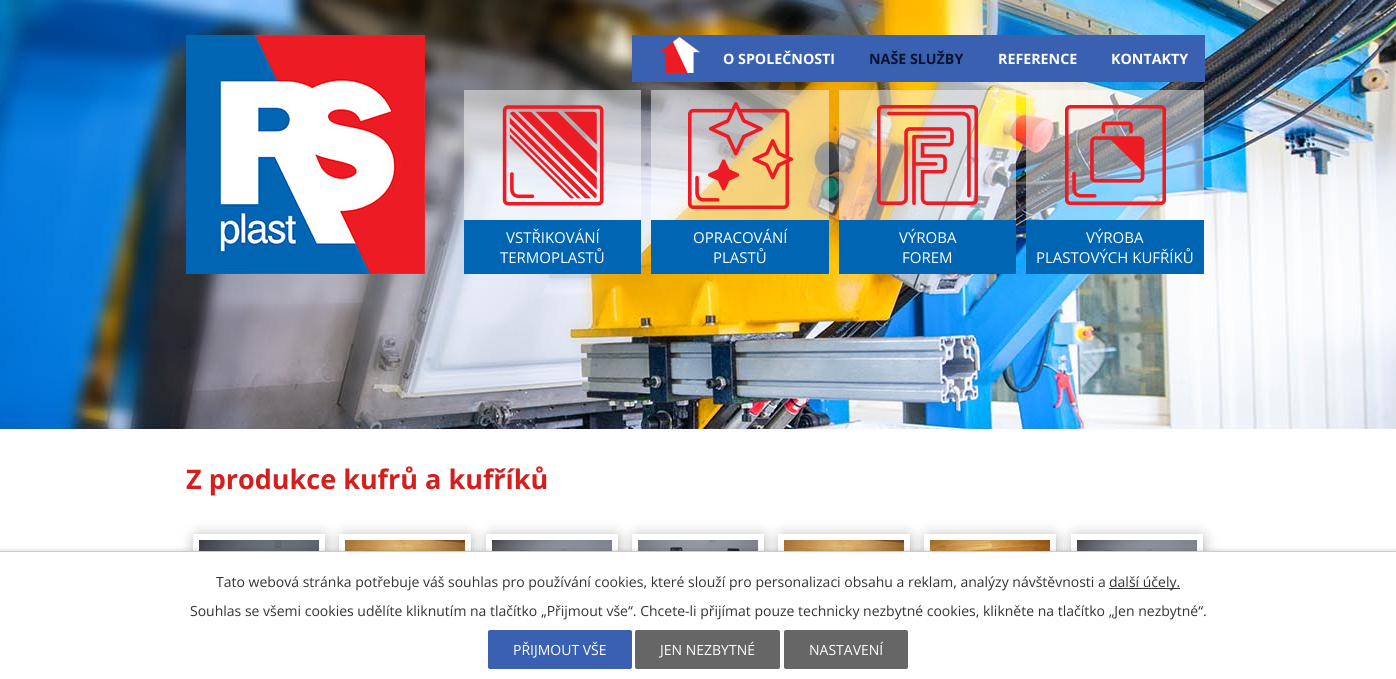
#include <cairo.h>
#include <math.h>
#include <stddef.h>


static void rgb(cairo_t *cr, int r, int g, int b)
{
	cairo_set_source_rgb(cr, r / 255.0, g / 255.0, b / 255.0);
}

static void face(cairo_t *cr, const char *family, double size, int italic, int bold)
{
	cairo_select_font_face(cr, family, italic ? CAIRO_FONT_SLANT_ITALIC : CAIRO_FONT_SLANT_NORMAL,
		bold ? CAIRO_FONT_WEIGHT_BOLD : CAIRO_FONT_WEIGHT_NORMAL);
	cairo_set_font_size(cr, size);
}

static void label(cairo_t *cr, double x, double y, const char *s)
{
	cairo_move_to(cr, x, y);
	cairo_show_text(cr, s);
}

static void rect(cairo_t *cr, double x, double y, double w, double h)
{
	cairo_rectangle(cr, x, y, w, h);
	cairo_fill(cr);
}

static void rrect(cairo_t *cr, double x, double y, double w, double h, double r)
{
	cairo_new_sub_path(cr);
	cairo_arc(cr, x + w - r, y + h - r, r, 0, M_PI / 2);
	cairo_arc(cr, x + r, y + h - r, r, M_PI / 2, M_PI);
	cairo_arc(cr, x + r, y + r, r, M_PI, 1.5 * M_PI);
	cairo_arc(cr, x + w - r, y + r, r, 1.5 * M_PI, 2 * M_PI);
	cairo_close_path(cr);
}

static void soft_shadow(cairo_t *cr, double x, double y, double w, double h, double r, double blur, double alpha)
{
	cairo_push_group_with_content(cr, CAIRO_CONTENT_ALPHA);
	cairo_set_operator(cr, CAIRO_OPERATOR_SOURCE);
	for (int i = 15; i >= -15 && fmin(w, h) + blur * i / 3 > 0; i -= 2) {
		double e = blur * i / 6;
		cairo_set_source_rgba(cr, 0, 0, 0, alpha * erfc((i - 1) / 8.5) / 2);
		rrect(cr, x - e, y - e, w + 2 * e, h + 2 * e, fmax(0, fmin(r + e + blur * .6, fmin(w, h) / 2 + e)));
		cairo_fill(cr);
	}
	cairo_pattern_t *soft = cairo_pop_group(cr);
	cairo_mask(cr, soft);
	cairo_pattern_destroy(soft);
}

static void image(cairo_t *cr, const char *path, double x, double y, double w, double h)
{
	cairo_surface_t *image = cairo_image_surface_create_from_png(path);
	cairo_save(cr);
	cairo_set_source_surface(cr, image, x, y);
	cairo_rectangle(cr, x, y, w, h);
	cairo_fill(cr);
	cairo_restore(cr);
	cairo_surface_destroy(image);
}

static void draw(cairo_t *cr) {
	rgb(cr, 255, 255, 255);
	cairo_paint(cr);
	image(cr, "image0.png", 0, 0, 1396, 432);
	rgb(cr, 57, 96, 177);
	rect(cr, 632, 35, 573, 47);
	image(cr, "image1.png", 659, 37, 41, 36);
	face(cr, "Open Sans", 14.25, 0, 1);
	rgb(cr, 255, 255, 255);
	label(cr, 723, 64, "O SPOLEČNOSTI");
	rgb(cr, 7, 20, 47);
	label(cr, 869, 64, "NAŠE SLUŽBY");
	rgb(cr, 255, 255, 255);
	label(cr, 998, 64, "REFERENCE");
	label(cr, 1111, 64, "KONTAKTY");
	image(cr, "image2.png", 186, 35, 239, 239);
	cairo_set_source_rgba(cr, 1, 1, 1, 0.48);
	rect(cr, 464, 90, 177, 130);
	image(cr, "image3.png", 502, 105, 102, 101);
	rgb(cr, 0, 102, 179);
	rect(cr, 464, 220, 177, 54);
	face(cr, "Open Sans", 15, 0, 0);
	rgb(cr, 255, 255, 255);
	label(cr, 506, 243, "VSTŘIKOVÁNÍ");
	label(cr, 500, 263, "TERMOPLASTŮ");
	cairo_set_source_rgba(cr, 1, 1, 1, 0.48);
	rect(cr, 651, 90, 178, 130);
	image(cr, "image4.png", 688, 102, 105, 107);
	rgb(cr, 0, 102, 179);
	rect(cr, 651, 220, 178, 54);
	rgb(cr, 255, 255, 255);
	label(cr, 693, 243, "OPRACOVÁNÍ");
	label(cr, 713, 263, "PLASTŮ");
	cairo_set_source_rgba(cr, 1, 1, 1, 0.48);
	rect(cr, 839, 90, 177, 130);
	image(cr, "image5.png", 877, 105, 101, 100);
	rgb(cr, 0, 102, 179);
	rect(cr, 839, 220, 177, 54);
	rgb(cr, 255, 255, 255);
	label(cr, 899, 243, "VÝROBA");
	label(cr, 902, 263, "FOREM");
	cairo_set_source_rgba(cr, 1, 1, 1, 0.48);
	rect(cr, 1026, 90, 178, 130);
	image(cr, "image6.png", 1065, 105, 101, 100);
	rgb(cr, 0, 102, 179);
	rect(cr, 1026, 220, 178, 54);
	rgb(cr, 255, 255, 255);
	label(cr, 1086, 243, "VÝROBA");
	label(cr, 1036, 263, "PLASTOVÝCH KUFŘÍKŮ");
	face(cr, "Open Sans", 27, 0, 1);
	rgb(cr, 212, 31, 30);
	label(cr, 186, 489, "Z produkce kufrů a kufříků");
	cairo_save(cr);
	cairo_set_fill_rule(cr, CAIRO_FILL_RULE_EVEN_ODD);
	cairo_new_path(cr);
	cairo_move_to(cr, 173, 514);
	cairo_line_to(cr, 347, 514);
	cairo_line_to(cr, 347, 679);
	cairo_line_to(cr, 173, 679);
	cairo_close_path(cr);
	cairo_move_to(cr, 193, 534);
	cairo_line_to(cr, 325, 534);
	cairo_line_to(cr, 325, 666);
	cairo_line_to(cr, 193, 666);
	cairo_close_path(cr);
	cairo_clip(cr);
	rgb(cr, 136, 136, 136);
	soft_shadow(cr, 198, 539, 124, 124, 0, 8, 1);
	cairo_restore(cr);
	image(cr, "image7.png", 199, 540, 120, 11);
	cairo_save(cr);
	cairo_set_fill_rule(cr, CAIRO_FILL_RULE_EVEN_ODD);
	cairo_new_path(cr);
	cairo_move_to(cr, 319, 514);
	cairo_line_to(cr, 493, 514);
	cairo_line_to(cr, 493, 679);
	cairo_line_to(cr, 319, 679);
	cairo_close_path(cr);
	cairo_move_to(cr, 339, 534);
	cairo_line_to(cr, 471, 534);
	cairo_line_to(cr, 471, 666);
	cairo_line_to(cr, 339, 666);
	cairo_close_path(cr);
	cairo_clip(cr);
	rgb(cr, 136, 136, 136);
	soft_shadow(cr, 344, 539, 124, 124, 0, 8, 1);
	cairo_restore(cr);
	image(cr, "image8.png", 345, 540, 120, 11);
	cairo_save(cr);
	cairo_set_fill_rule(cr, CAIRO_FILL_RULE_EVEN_ODD);
	cairo_new_path(cr);
	cairo_move_to(cr, 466, 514);
	cairo_line_to(cr, 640, 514);
	cairo_line_to(cr, 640, 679);
	cairo_line_to(cr, 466, 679);
	cairo_close_path(cr);
	cairo_move_to(cr, 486, 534);
	cairo_line_to(cr, 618, 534);
	cairo_line_to(cr, 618, 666);
	cairo_line_to(cr, 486, 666);
	cairo_close_path(cr);
	cairo_clip(cr);
	rgb(cr, 136, 136, 136);
	soft_shadow(cr, 491, 539, 124, 124, 0, 8, 1);
	cairo_restore(cr);
	image(cr, "image9.png", 492, 540, 120, 11);
	cairo_save(cr);
	cairo_set_fill_rule(cr, CAIRO_FILL_RULE_EVEN_ODD);
	cairo_new_path(cr);
	cairo_move_to(cr, 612, 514);
	cairo_line_to(cr, 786, 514);
	cairo_line_to(cr, 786, 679);
	cairo_line_to(cr, 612, 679);
	cairo_close_path(cr);
	cairo_move_to(cr, 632, 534);
	cairo_line_to(cr, 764, 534);
	cairo_line_to(cr, 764, 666);
	cairo_line_to(cr, 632, 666);
	cairo_close_path(cr);
	cairo_clip(cr);
	rgb(cr, 136, 136, 136);
	soft_shadow(cr, 637, 539, 124, 124, 0, 8, 1);
	cairo_restore(cr);
	image(cr, "image10.png", 638, 540, 120, 11);
	cairo_save(cr);
	cairo_set_fill_rule(cr, CAIRO_FILL_RULE_EVEN_ODD);
	cairo_new_path(cr);
	cairo_move_to(cr, 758, 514);
	cairo_line_to(cr, 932, 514);
	cairo_line_to(cr, 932, 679);
	cairo_line_to(cr, 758, 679);
	cairo_close_path(cr);
	cairo_move_to(cr, 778, 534);
	cairo_line_to(cr, 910, 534);
	cairo_line_to(cr, 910, 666);
	cairo_line_to(cr, 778, 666);
	cairo_close_path(cr);
	cairo_clip(cr);
	rgb(cr, 136, 136, 136);
	soft_shadow(cr, 783, 539, 124, 124, 0, 8, 1);
	cairo_restore(cr);
	image(cr, "image8.png", 784, 540, 120, 11);
	cairo_save(cr);
	cairo_set_fill_rule(cr, CAIRO_FILL_RULE_EVEN_ODD);
	cairo_new_path(cr);
	cairo_move_to(cr, 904, 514);
	cairo_line_to(cr, 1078, 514);
	cairo_line_to(cr, 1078, 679);
	cairo_line_to(cr, 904, 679);
	cairo_close_path(cr);
	cairo_move_to(cr, 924, 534);
	cairo_line_to(cr, 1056, 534);
	cairo_line_to(cr, 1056, 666);
	cairo_line_to(cr, 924, 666);
	cairo_close_path(cr);
	cairo_clip(cr);
	rgb(cr, 136, 136, 136);
	soft_shadow(cr, 929, 539, 124, 124, 0, 8, 1);
	cairo_restore(cr);
	image(cr, "image11.png", 930, 540, 120, 11);
	cairo_save(cr);
	cairo_set_fill_rule(cr, CAIRO_FILL_RULE_EVEN_ODD);
	cairo_new_path(cr);
	cairo_move_to(cr, 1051, 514);
	cairo_line_to(cr, 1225, 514);
	cairo_line_to(cr, 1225, 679);
	cairo_line_to(cr, 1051, 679);
	cairo_close_path(cr);
	cairo_move_to(cr, 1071, 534);
	cairo_line_to(cr, 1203, 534);
	cairo_line_to(cr, 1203, 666);
	cairo_line_to(cr, 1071, 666);
	cairo_close_path(cr);
	cairo_clip(cr);
	rgb(cr, 136, 136, 136);
	soft_shadow(cr, 1076, 539, 124, 124, 0, 8, 1);
	cairo_restore(cr);
	image(cr, "image9.png", 1077, 540, 120, 11);
	rgb(cr, 0, 0, 0);
	soft_shadow(cr, 0, 551, 1396, 128, 0, 2.5, 0.2);
	rgb(cr, 255, 255, 255);
	rect(cr, 0, 552, 1396, 127);
	rgb(cr, 204, 204, 204);
	rect(cr, 0, 551, 1396, 1);
	face(cr, "Open Sans", 14, 0, 0);
	rgb(cr, 51, 51, 51);
	label(cr, 216, 587, "Tato webová stránka potřebuje váš souhlas pro používání cookies, které slouží pro personalizaci obsahu a reklam, analýzy návštěvnosti a");
	rect(cr, 1109, 588, 71, 1);
	label(cr, 1109, 587, "další účely.");
	label(cr, 190, 616, "Souhlas se všemi cookies udělíte kliknutím na tlačítko „Přijmout vše“. Chcete-li přijímat pouze technicky nezbytné cookies, klikněte na tlačítko „Jen nezbytné“.");
	rgb(cr, 57, 96, 177);
	rrect(cr, 488, 630, 144, 39, 2);
	cairo_fill(cr);
	rgb(cr, 255, 255, 255);
	label(cr, 513, 655, "PŘIJMOUT VŠE");
	rgb(cr, 102, 102, 102);
	rrect(cr, 635, 630, 145, 39, 2);
	cairo_fill(cr);
	rgb(cr, 255, 255, 255);
	label(cr, 660, 655, "JEN NEZBYTNÉ");
	rgb(cr, 102, 102, 102);
	rrect(cr, 784, 630, 124, 39, 2);
	cairo_fill(cr);
	rgb(cr, 255, 255, 255);
	label(cr, 809, 655, "NASTAVENÍ");
}

int main(void) {
	cairo_surface_t *surface = cairo_image_surface_create(CAIRO_FORMAT_RGB24, 1396, 679);
	cairo_t *cr = cairo_create(surface);
	cairo_font_options_t *options = cairo_font_options_create();
	cairo_font_options_set_hint_metrics(options, CAIRO_HINT_METRICS_OFF);
	cairo_font_options_set_hint_style(options, CAIRO_HINT_STYLE_NONE);
	cairo_set_font_options(cr, options);
	cairo_set_miter_limit(cr, 4);
	draw(cr);
	cairo_surface_write_to_png(surface, "render.png");
	cairo_font_options_destroy(options);
	cairo_destroy(cr);
	cairo_surface_destroy(surface);
	return 0;
}
